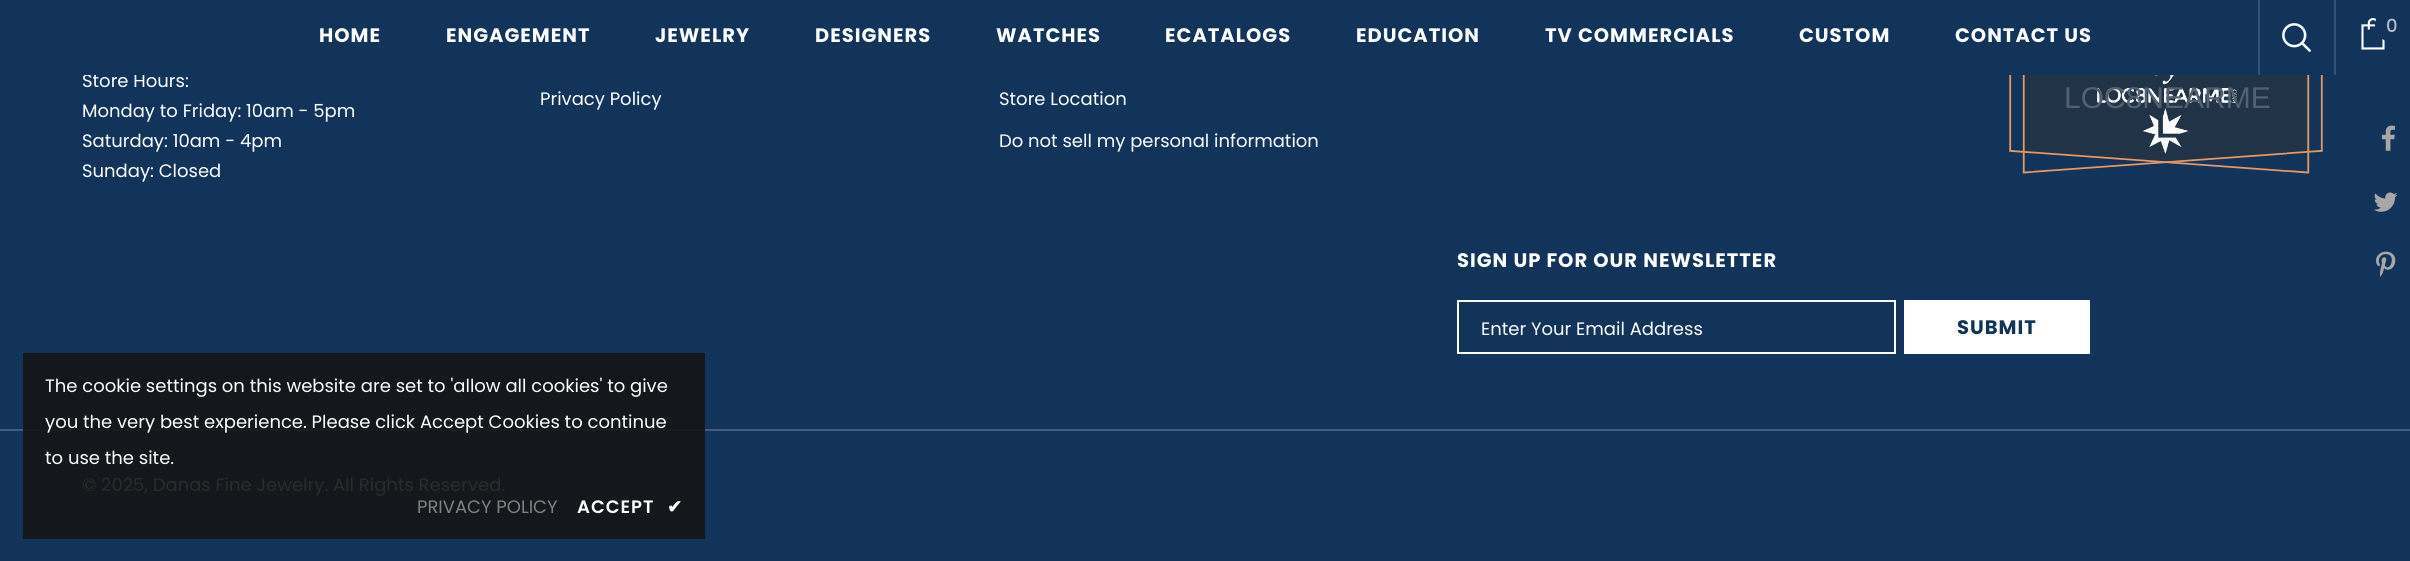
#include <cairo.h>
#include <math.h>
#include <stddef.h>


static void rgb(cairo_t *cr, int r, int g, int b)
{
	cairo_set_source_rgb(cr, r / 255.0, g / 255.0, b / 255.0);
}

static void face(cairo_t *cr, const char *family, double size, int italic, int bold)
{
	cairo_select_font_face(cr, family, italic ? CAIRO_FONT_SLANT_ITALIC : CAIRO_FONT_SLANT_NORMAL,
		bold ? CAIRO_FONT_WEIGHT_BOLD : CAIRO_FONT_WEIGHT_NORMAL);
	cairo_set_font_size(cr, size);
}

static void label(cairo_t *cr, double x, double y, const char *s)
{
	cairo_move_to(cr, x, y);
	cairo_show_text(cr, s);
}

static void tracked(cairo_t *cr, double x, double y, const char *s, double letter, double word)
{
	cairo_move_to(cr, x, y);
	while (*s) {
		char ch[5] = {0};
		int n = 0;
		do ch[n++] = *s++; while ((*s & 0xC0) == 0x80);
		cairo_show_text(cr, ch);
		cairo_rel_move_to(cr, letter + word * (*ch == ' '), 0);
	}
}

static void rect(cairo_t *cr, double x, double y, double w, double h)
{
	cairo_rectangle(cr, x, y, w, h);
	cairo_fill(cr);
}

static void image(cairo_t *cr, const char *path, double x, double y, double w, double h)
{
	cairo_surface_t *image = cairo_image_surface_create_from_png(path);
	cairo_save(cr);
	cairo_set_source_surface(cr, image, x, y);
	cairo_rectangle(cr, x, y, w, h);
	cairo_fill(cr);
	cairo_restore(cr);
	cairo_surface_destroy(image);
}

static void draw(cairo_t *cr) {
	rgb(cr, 18, 52, 90);
	cairo_paint(cr);
	image(cr, "image0.png", 2361, 18, 24, 32);
	rgb(cr, 18, 52, 90);
	cairo_arc(cr, 2392, 25, 17, 0, 2 * M_PI);
	cairo_fill(cr);
	face(cr, "Poppins Medium", 18, 0, 0);
	rgb(cr, 179, 190, 201);
	label(cr, 2386, 32, "0");
	face(cr, "Poppins", 18, 0, 0);
	rgb(cr, 255, 255, 255);
	label(cr, 82, 87, "Store Hours:");
	rgb(cr, 18, 52, 90);
	rect(cr, 84, 74, 61, 1);
	face(cr, "Poppins", 19.5, 0, 1);
	rgb(cr, 255, 255, 255);
	tracked(cr, 319, 42, "HOME", 1, 0);
	tracked(cr, 446, 42, "ENGAGEMENT", 1, 0);
	tracked(cr, 655, 42, "JEWELRY", 1, 0);
	tracked(cr, 815, 42, "DESIGNERS", 1, 0);
	tracked(cr, 996, 42, "WATCHES", 1, 0);
	tracked(cr, 1165, 42, "ECATALOGS", 1, 0);
	tracked(cr, 1356, 42, "EDUCATION", 1, 0);
	tracked(cr, 1545, 42, "TV COMMERCIALS", 1, 0);
	tracked(cr, 1799, 42, "CUSTOM", 1, 0);
	tracked(cr, 1955, 42, "CONTACT US", 1, 0);
	rgb(cr, 54, 82, 115);
	rect(cr, 2258, 0, 2, 75);
	image(cr, "image1.png", 2282, 23, 29, 29);
	rect(cr, 2334, 0, 2, 75);
	rgb(cr, 20, 23, 27);
	rect(cr, 23, 353, 682, 186);
	face(cr, "Poppins", 18, 0, 0);
	rgb(cr, 255, 255, 255);
	label(cr, 82, 117, "Monday to Friday: 10am - 5pm");
	label(cr, 82, 147, "Saturday: 10am - 4pm");
	label(cr, 82, 177, "Sunday: Closed");
	label(cr, 540, 105, "Privacy Policy");
	label(cr, 999, 105, "Store Location");
	label(cr, 999, 147, "Do not sell my personal information");
	image(cr, "image2.png", 2009, 75, 314, 99);
	face(cr, "Liberation Sans", 30, 0, 0);
	rgb(cr, 82, 97, 112);
	label(cr, 2064, 108, "LOC8NEARME");
	face(cr, "Poppins", 19.5, 0, 1);
	rgb(cr, 255, 255, 255);
	tracked(cr, 1457, 267, "SIGN UP FOR OUR NEWSLETTER", 1, 0);
	cairo_rectangle(cr, 1458, 301, 437, 52);
	cairo_stroke(cr);
	face(cr, "Poppins", 18, 0, 0);
	label(cr, 1481, 335, "Enter Your Email Address");
	rect(cr, 1904, 300, 186, 54);
	face(cr, "Poppins", 19.5, 0, 1);
	rgb(cr, 18, 52, 90);
	tracked(cr, 1957, 334, "SUBMIT", 1, 0);
	rgb(cr, 65, 93, 123);
	rect(cr, 0, 429, 2410, 2);
	rgb(cr, 25, 27, 30);
	rect(cr, 23, 429, 682, 2);
	face(cr, "Poppins", 18, 0, 0);
	rgb(cr, 43, 43, 43);
	label(cr, 82, 491, "© 2025, Danas Fine Jewelry. All Rights Reserved.");
	rgb(cr, 255, 255, 255);
	label(cr, 45, 392, "The cookie settings on this website are set to 'allow all cookies' to give");
	label(cr, 45, 428, "you the very best experience. Please click Accept Cookies to continue");
	label(cr, 45, 464, "to use the site.");
	rgb(cr, 129, 129, 129);
	label(cr, 417, 513, "PRIVACY POLICY");
	face(cr, "Poppins SemiBold", 18, 0, 0);
	rgb(cr, 255, 255, 255);
	tracked(cr, 577, 513, "ACCEPT", 1, 0);
	face(cr, "DejaVu Sans", 18, 0, 1);
	tracked(cr, 667, 513, "✔", 1, 0);
	image(cr, "image3.png", 2381, 125, 14, 26);
	image(cr, "image4.png", 2373, 192, 25, 20);
	image(cr, "image5.png", 2376, 251, 20, 26);
}

int main(void) {
	cairo_surface_t *surface = cairo_image_surface_create(CAIRO_FORMAT_RGB24, 2410, 561);
	cairo_t *cr = cairo_create(surface);
	cairo_font_options_t *options = cairo_font_options_create();
	cairo_font_options_set_hint_metrics(options, CAIRO_HINT_METRICS_OFF);
	cairo_font_options_set_hint_style(options, CAIRO_HINT_STYLE_NONE);
	cairo_set_font_options(cr, options);
	cairo_set_miter_limit(cr, 4);
	draw(cr);
	cairo_surface_write_to_png(surface, "render.png");
	cairo_font_options_destroy(options);
	cairo_destroy(cr);
	cairo_surface_destroy(surface);
	return 0;
}
